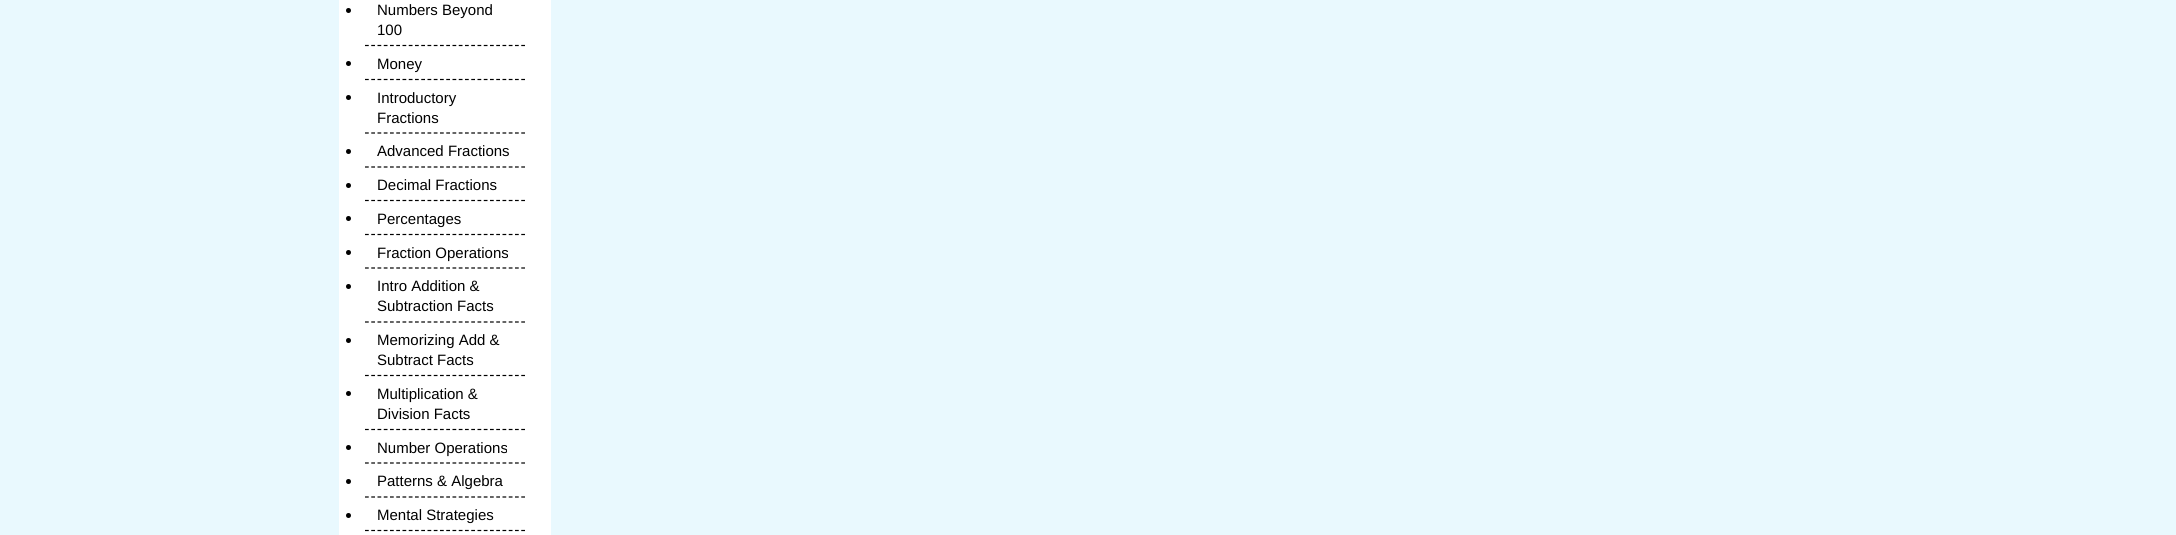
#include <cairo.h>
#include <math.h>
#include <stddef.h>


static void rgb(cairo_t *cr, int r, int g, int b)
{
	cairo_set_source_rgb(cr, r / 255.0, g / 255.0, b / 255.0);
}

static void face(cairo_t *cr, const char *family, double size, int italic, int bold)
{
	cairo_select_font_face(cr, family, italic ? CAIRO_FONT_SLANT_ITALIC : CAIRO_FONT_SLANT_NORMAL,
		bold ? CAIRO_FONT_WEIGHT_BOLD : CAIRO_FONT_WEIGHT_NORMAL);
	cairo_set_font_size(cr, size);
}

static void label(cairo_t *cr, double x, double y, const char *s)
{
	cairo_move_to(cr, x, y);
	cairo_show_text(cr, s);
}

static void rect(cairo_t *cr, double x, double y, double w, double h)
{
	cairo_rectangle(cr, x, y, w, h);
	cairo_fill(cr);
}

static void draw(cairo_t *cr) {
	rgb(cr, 233, 249, 254);
	cairo_paint(cr);
	rgb(cr, 255, 255, 255);
	rect(cr, 339, 0, 212, 535);
	cairo_new_path(cr);
	cairo_move_to(cr, 365, 45.5);
	cairo_line_to(cr, 525, 45.5);
	rgb(cr, 0, 0, 0);
	cairo_set_line_width(cr, 1.2);
	cairo_set_dash(cr, (double[]){3.75, 2.5}, 2, 0);
	cairo_stroke(cr);
	cairo_arc(cr, 348.5, 10.5, 2.5, 0, 2 * M_PI);
	cairo_fill(cr);
	face(cr, "Liberation Sans", 15, 0, 0);
	label(cr, 377, 15, "Numbers Beyond");
	label(cr, 377, 35, "100");
	cairo_new_path(cr);
	cairo_move_to(cr, 365, 79.5);
	cairo_line_to(cr, 525, 79.5);
	cairo_stroke(cr);
	cairo_arc(cr, 348.5, 63.5, 2.5, 0, 2 * M_PI);
	cairo_fill(cr);
	label(cr, 377, 69, "Money");
	cairo_new_path(cr);
	cairo_move_to(cr, 365, 133);
	cairo_line_to(cr, 525, 133);
	cairo_stroke(cr);
	cairo_arc(cr, 348.5, 97.5, 2.5, 0, 2 * M_PI);
	cairo_fill(cr);
	label(cr, 377, 103, "Introductory");
	label(cr, 377, 123, "Fractions");
	cairo_new_path(cr);
	cairo_move_to(cr, 365, 167);
	cairo_line_to(cr, 525, 167);
	cairo_stroke(cr);
	cairo_arc(cr, 348.5, 151.5, 2.5, 0, 2 * M_PI);
	cairo_fill(cr);
	label(cr, 377, 156, "Advanced Fractions");
	cairo_new_path(cr);
	cairo_move_to(cr, 365, 200.5);
	cairo_line_to(cr, 525, 200.5);
	cairo_stroke(cr);
	cairo_arc(cr, 348.5, 185.5, 2.5, 0, 2 * M_PI);
	cairo_fill(cr);
	label(cr, 377, 190, "Decimal Fractions");
	cairo_new_path(cr);
	cairo_move_to(cr, 365, 234.5);
	cairo_line_to(cr, 525, 234.5);
	cairo_stroke(cr);
	cairo_arc(cr, 348.5, 218.5, 2.5, 0, 2 * M_PI);
	cairo_fill(cr);
	label(cr, 377, 224, "Percentages");
	cairo_new_path(cr);
	cairo_move_to(cr, 365, 268);
	cairo_line_to(cr, 525, 268);
	cairo_stroke(cr);
	cairo_arc(cr, 348.5, 252.5, 2.5, 0, 2 * M_PI);
	cairo_fill(cr);
	label(cr, 377, 258, "Fraction Operations");
	cairo_new_path(cr);
	cairo_move_to(cr, 365, 322);
	cairo_line_to(cr, 525, 322);
	cairo_stroke(cr);
	cairo_arc(cr, 348.5, 286.5, 2.5, 0, 2 * M_PI);
	cairo_fill(cr);
	label(cr, 377, 291, "Intro Addition &");
	label(cr, 377, 311, "Subtraction Facts");
	cairo_new_path(cr);
	cairo_move_to(cr, 365, 375.5);
	cairo_line_to(cr, 525, 375.5);
	cairo_stroke(cr);
	cairo_arc(cr, 348.5, 340.5, 2.5, 0, 2 * M_PI);
	cairo_fill(cr);
	label(cr, 377, 345, "Memorizing Add &");
	label(cr, 377, 365, "Subtract Facts");
	cairo_new_path(cr);
	cairo_move_to(cr, 365, 429.5);
	cairo_line_to(cr, 525, 429.5);
	cairo_stroke(cr);
	cairo_arc(cr, 348.5, 393.5, 2.5, 0, 2 * M_PI);
	cairo_fill(cr);
	label(cr, 377, 399, "Multiplication &");
	label(cr, 377, 419, "Division Facts");
	cairo_new_path(cr);
	cairo_move_to(cr, 365, 463);
	cairo_line_to(cr, 525, 463);
	cairo_stroke(cr);
	cairo_arc(cr, 348.5, 447.5, 2.5, 0, 2 * M_PI);
	cairo_fill(cr);
	label(cr, 377, 453, "Number Operations");
	cairo_new_path(cr);
	cairo_move_to(cr, 365, 497);
	cairo_line_to(cr, 525, 497);
	cairo_stroke(cr);
	cairo_arc(cr, 348.5, 481.5, 2.5, 0, 2 * M_PI);
	cairo_fill(cr);
	label(cr, 377, 486, "Patterns & Algebra");
	cairo_new_path(cr);
	cairo_move_to(cr, 365, 530.5);
	cairo_line_to(cr, 525, 530.5);
	cairo_stroke(cr);
	cairo_arc(cr, 348.5, 515.5, 2.5, 0, 2 * M_PI);
	cairo_fill(cr);
	label(cr, 377, 520, "Mental Strategies");
}

int main(void) {
	cairo_surface_t *surface = cairo_image_surface_create(CAIRO_FORMAT_RGB24, 2176, 535);
	cairo_t *cr = cairo_create(surface);
	cairo_font_options_t *options = cairo_font_options_create();
	cairo_font_options_set_hint_metrics(options, CAIRO_HINT_METRICS_OFF);
	cairo_font_options_set_hint_style(options, CAIRO_HINT_STYLE_NONE);
	cairo_set_font_options(cr, options);
	cairo_set_miter_limit(cr, 4);
	draw(cr);
	cairo_surface_write_to_png(surface, "render.png");
	cairo_font_options_destroy(options);
	cairo_destroy(cr);
	cairo_surface_destroy(surface);
	return 0;
}
